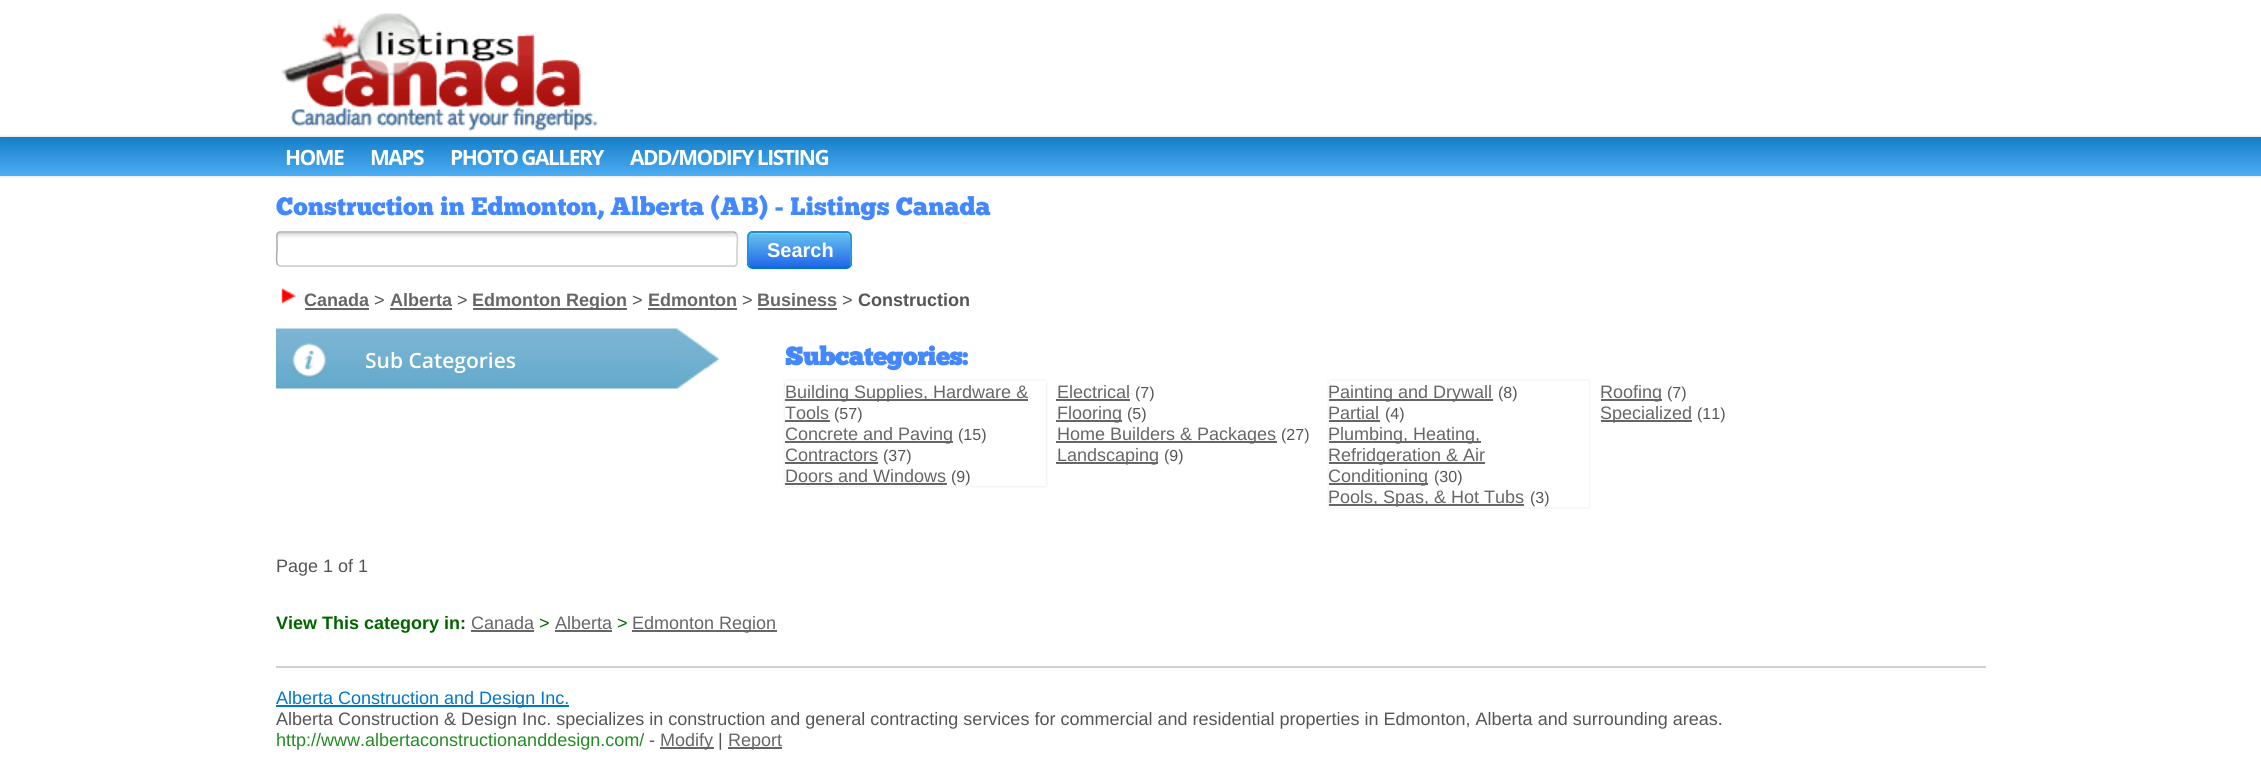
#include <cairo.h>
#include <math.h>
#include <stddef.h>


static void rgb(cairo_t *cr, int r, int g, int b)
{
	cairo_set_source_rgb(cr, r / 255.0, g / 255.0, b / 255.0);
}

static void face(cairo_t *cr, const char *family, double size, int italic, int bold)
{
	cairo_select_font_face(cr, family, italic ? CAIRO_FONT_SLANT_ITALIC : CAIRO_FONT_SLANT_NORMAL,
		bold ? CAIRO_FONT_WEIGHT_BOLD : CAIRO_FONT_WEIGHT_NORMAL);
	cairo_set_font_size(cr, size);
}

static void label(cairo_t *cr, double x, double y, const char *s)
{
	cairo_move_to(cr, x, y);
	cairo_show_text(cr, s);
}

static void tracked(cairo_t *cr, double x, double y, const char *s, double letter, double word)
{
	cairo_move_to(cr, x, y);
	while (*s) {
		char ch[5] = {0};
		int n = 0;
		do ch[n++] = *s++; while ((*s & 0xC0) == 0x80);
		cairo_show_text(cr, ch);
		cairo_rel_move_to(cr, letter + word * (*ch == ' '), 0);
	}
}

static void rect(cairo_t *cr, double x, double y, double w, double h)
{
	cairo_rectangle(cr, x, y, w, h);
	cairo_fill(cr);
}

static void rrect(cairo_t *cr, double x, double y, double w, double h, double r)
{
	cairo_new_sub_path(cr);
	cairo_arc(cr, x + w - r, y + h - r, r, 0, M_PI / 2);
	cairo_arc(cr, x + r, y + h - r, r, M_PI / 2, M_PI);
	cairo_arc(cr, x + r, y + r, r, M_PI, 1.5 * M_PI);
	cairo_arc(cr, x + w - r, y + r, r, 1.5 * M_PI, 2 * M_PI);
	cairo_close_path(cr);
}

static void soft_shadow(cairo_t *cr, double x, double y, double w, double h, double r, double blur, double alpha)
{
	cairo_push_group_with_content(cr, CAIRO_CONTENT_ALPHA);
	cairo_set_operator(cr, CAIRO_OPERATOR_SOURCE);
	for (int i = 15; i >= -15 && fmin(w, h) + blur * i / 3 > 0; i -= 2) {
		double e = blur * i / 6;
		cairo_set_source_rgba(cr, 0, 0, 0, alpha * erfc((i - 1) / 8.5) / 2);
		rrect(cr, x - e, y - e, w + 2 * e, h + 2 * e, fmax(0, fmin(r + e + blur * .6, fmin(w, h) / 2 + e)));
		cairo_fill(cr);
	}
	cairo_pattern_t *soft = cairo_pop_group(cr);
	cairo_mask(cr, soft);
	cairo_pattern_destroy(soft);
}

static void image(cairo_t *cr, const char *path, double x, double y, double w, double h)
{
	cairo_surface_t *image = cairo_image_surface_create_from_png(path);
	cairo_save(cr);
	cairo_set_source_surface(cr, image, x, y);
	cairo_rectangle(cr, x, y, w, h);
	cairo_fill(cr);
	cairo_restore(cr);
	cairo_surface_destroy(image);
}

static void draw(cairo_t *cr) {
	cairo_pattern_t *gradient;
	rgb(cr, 255, 255, 255);
	cairo_paint(cr);
	image(cr, "image0.png", 281, 13, 317, 118);
	rgb(cr, 0, 0, 0);
	soft_shadow(cr, 0, 137, 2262, 39, 0, 1.5, 0.2);
	gradient = cairo_pattern_create_linear(1131, 136, 1131, 176);
	cairo_pattern_add_color_stop_rgba(gradient, 0, 0.078, 0.49, 0.784, 1);
	cairo_pattern_add_color_stop_rgba(gradient, 1, 0.298, 0.678, 0.949, 1);
	cairo_set_source(cr, gradient);
	cairo_pattern_destroy(gradient);
	rect(cr, 0, 137, 2261, 39);
	face(cr, "Open Sans", 21, 0, 1);
	rgb(cr, 255, 255, 255);
	tracked(cr, 285, 165, "HOME", -1.5, 0);
	tracked(cr, 370, 165, "MAPS", -1.5, 0);
	tracked(cr, 450, 165, "PHOTO GALLERY", -1.5, 0);
	tracked(cr, 630, 165, "ADD/MODIFY LISTING", -1.5, 0);
	face(cr, "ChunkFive", 25.2, 0, 0);
	rgb(cr, 68, 136, 255);
	label(cr, 276, 215, "Construction in Edmonton, Alberta (AB) - Listings Canada");
	cairo_save(cr);
	rrect(cr, 276, 231, 462, 36, 5);
	cairo_clip(cr);
	gradient = cairo_pattern_create_linear(507, 232, 507, 266);
	cairo_pattern_add_color_stop_rgba(gradient, 0, 0.82, 0.82, 0.82, 1);
	cairo_pattern_add_color_stop_rgba(gradient, 0.18, 1, 1, 1, 1);
	cairo_pattern_add_color_stop_rgba(gradient, 1, 1, 1, 1, 1);
	cairo_set_source(cr, gradient);
	cairo_pattern_destroy(gradient);
	rect(cr, 276, 233, 462, 33);
	gradient = cairo_pattern_create_linear(507, 265, 507, 299);
	cairo_pattern_add_color_stop_rgba(gradient, 0, 0.82, 0.82, 0.82, 1);
	cairo_pattern_add_color_stop_rgba(gradient, 0.18, 1, 1, 1, 1);
	cairo_pattern_add_color_stop_rgba(gradient, 1, 1, 1, 1, 1);
	cairo_set_source(cr, gradient);
	cairo_pattern_destroy(gradient);
	rect(cr, 276, 266, 462, 1);
	cairo_restore(cr);
	cairo_new_path(cr);
	cairo_move_to(cr, 736, 233);
	cairo_curve_to(cr, 738.5, 235, 737, 246, 737, 249);
	cairo_line_to(cr, 737, 258);
	cairo_curve_to(cr, 737, 260.5, 738, 265, 734.5, 266);
	cairo_line_to(cr, 280, 266);
	cairo_line_to(cr, 278, 265);
	rgb(cr, 204, 204, 204);
	cairo_set_line_width(cr, 1.5);
	cairo_stroke(cr);
	cairo_new_path(cr);
	cairo_move_to(cr, 278, 265);
	cairo_curve_to(cr, 275.5, 263, 277, 252, 277, 249);
	cairo_line_to(cr, 277, 240);
	cairo_curve_to(cr, 277, 237.5, 276, 233, 279.5, 232);
	cairo_line_to(cr, 734, 232);
	cairo_line_to(cr, 736, 233);
	rgb(cr, 170, 170, 170);
	cairo_stroke(cr);
	rgb(cr, 0, 0, 0);
	soft_shadow(cr, 747, 233, 105, 37, 6, 1.5, 0.05);
	rgb(cr, 0, 109, 204);
	rrect(cr, 747, 231, 105, 38, 6);
	cairo_fill(cr);
	cairo_save(cr);
	rrect(cr, 747, 231, 105, 38, 6);
	cairo_clip(cr);
	gradient = cairo_pattern_create_linear(800, 233, 800, 267);
	cairo_pattern_add_color_stop_rgba(gradient, 0, 0.404, 0.761, 0.937, 1);
	cairo_pattern_add_color_stop_rgba(gradient, 1, 0.133, 0.404, 0.914, 1);
	cairo_set_source(cr, gradient);
	cairo_pattern_destroy(gradient);
	rect(cr, 747, 233, 105, 34);
	cairo_restore(cr);
	cairo_set_source_rgba(cr, 1, 1, 1, 0.2);
	cairo_new_path(cr);
	cairo_move_to(cr, 753, 234);
	cairo_line_to(cr, 830, 234);
	cairo_curve_to(cr, 850, 234, 850, 230, 850, 247);
	cairo_line_to(cr, 850, 265);
	cairo_curve_to(cr, 852, 262, 851, 253, 851, 250);
	cairo_curve_to(cr, 851, 230, 853, 233, 831, 233);
	cairo_line_to(cr, 769, 233);
	cairo_curve_to(cr, 769, 233, 753, 230, 750, 235);
	cairo_close_path(cr);
	cairo_fill(cr);
	cairo_new_path(cr);
	cairo_move_to(cr, 849.5, 266);
	cairo_line_to(cr, 846.5, 267.5);
	cairo_line_to(cr, 752.5, 267.5);
	cairo_line_to(cr, 749.5, 266);
	rgb(cr, 0, 123, 184);
	cairo_stroke(cr);
	cairo_new_path(cr);
	cairo_move_to(cr, 749.5, 266);
	cairo_curve_to(cr, 746.5, 263.5, 748, 253.5, 748, 250);
	cairo_curve_to(cr, 748, 228.5, 746, 232, 768.5, 232);
	cairo_line_to(cr, 830.5, 232);
	cairo_curve_to(cr, 853, 232, 851, 228.5, 851, 250);
	cairo_curve_to(cr, 851, 253.5, 852.5, 263.5, 849.5, 266);
	rgb(cr, 21, 152, 217);
	cairo_stroke(cr);
	face(cr, "Liberation Sans", 20, 0, 1);
	rgb(cr, 255, 255, 255);
	label(cr, 767, 257, "Search");
	image(cr, "image1.png", 281, 288, 15, 16);
	face(cr, "Liberation Sans", 18, 0, 1);
	rgb(cr, 102, 102, 102);
	label(cr, 304, 306, "Canada");
	rect(cr, 305, 308, 64, 2);
	face(cr, "Liberation Sans", 18, 0, 0);
	rgb(cr, 85, 85, 85);
	label(cr, 374, 306, ">");
	face(cr, "Liberation Sans", 18, 0, 1);
	rgb(cr, 102, 102, 102);
	label(cr, 390, 306, "Alberta");
	rect(cr, 390, 308, 62, 2);
	face(cr, "Liberation Sans", 18, 0, 0);
	rgb(cr, 85, 85, 85);
	label(cr, 457, 306, ">");
	rgb(cr, 102, 102, 102);
	rect(cr, 473, 308, 154, 2);
	face(cr, "Liberation Sans", 18, 0, 1);
	label(cr, 472, 306, "Edmonton Region");
	face(cr, "Liberation Sans", 18, 0, 0);
	rgb(cr, 85, 85, 85);
	label(cr, 632, 306, ">");
	face(cr, "Liberation Sans", 18, 0, 1);
	rgb(cr, 102, 102, 102);
	label(cr, 648, 306, "Edmonton");
	rect(cr, 648, 308, 89, 2);
	face(cr, "Liberation Sans", 18, 0, 0);
	rgb(cr, 85, 85, 85);
	label(cr, 742, 306, ">");
	face(cr, "Liberation Sans", 18, 0, 1);
	rgb(cr, 102, 102, 102);
	label(cr, 757, 306, "Business");
	rect(cr, 758, 308, 79, 2);
	face(cr, "Liberation Sans", 18, 0, 0);
	rgb(cr, 85, 85, 85);
	label(cr, 842, 306, ">");
	face(cr, "Liberation Sans", 18, 0, 1);
	label(cr, 858, 306, "Construction");
	image(cr, "image2.png", 276, 328, 443, 61);
	image(cr, "image3.png", 292, 343, 34, 35);
	face(cr, "Open Sans SemiBold", 21, 0, 0);
	rgb(cr, 255, 255, 255);
	label(cr, 365, 368, "Sub Categories");
	face(cr, "ChunkFive", 25.2, 0, 1);
	rgb(cr, 68, 136, 255);
	label(cr, 785, 365, "Subcategories");
	face(cr, "ChunkFive", 25.2, 0, 0);
	label(cr, 962, 365, ":");
	rgb(cr, 0, 0, 0);
	soft_shadow(cr, 785, 381, 261, 105, 0, 1.5, 0.1);
	rgb(cr, 255, 255, 255);
	rect(cr, 785, 381, 261, 105);
	rgb(cr, 102, 102, 102);
	rect(cr, 785, 399, 243, 2);
	face(cr, "Liberation Sans", 18, 0, 0);
	label(cr, 785, 398, "Building Supplies, Hardware &");
	label(cr, 785, 419, "Tools");
	rect(cr, 785, 420, 45, 2);
	face(cr, "Liberation Sans", 16, 0, 0);
	rgb(cr, 85, 85, 85);
	label(cr, 834, 419, "(57)");
	rgb(cr, 102, 102, 102);
	rect(cr, 785, 441, 168, 2);
	face(cr, "Liberation Sans", 18, 0, 0);
	label(cr, 785, 440, "Concrete and Paving");
	face(cr, "Liberation Sans", 16, 0, 0);
	rgb(cr, 85, 85, 85);
	label(cr, 958, 440, "(15)");
	face(cr, "Liberation Sans", 18, 0, 0);
	rgb(cr, 102, 102, 102);
	label(cr, 785, 461, "Contractors");
	rect(cr, 785, 462, 93, 2);
	face(cr, "Liberation Sans", 16, 0, 0);
	rgb(cr, 85, 85, 85);
	label(cr, 883, 461, "(37)");
	face(cr, "Liberation Sans", 18, 0, 0);
	rgb(cr, 102, 102, 102);
	label(cr, 785, 482, "Doors and Windows");
	rect(cr, 785, 483, 162, 2);
	face(cr, "Liberation Sans", 16, 0, 0);
	rgb(cr, 85, 85, 85);
	label(cr, 951, 482, "(9)");
	face(cr, "Liberation Sans", 18, 0, 0);
	rgb(cr, 102, 102, 102);
	label(cr, 1057, 398, "Electrical");
	rect(cr, 1056, 399, 74, 2);
	face(cr, "Liberation Sans", 16, 0, 0);
	rgb(cr, 85, 85, 85);
	label(cr, 1135, 398, "(7)");
	rgb(cr, 102, 102, 102);
	rect(cr, 1056, 420, 66, 2);
	face(cr, "Liberation Sans", 18, 0, 0);
	label(cr, 1057, 419, "Flooring");
	face(cr, "Liberation Sans", 16, 0, 0);
	rgb(cr, 85, 85, 85);
	label(cr, 1127, 419, "(5)");
	rgb(cr, 102, 102, 102);
	rect(cr, 1056, 441, 221, 2);
	face(cr, "Liberation Sans", 18, 0, 0);
	label(cr, 1057, 440, "Home Builders & Packages");
	face(cr, "Liberation Sans", 16, 0, 0);
	rgb(cr, 85, 85, 85);
	label(cr, 1281, 440, "(27)");
	rgb(cr, 102, 102, 102);
	rect(cr, 1056, 462, 102, 2);
	face(cr, "Liberation Sans", 18, 0, 0);
	label(cr, 1057, 461, "Landscaping");
	face(cr, "Liberation Sans", 16, 0, 0);
	rgb(cr, 85, 85, 85);
	label(cr, 1164, 461, "(9)");
	rgb(cr, 0, 0, 0);
	soft_shadow(cr, 1329, 381, 260, 126, 0, 1.5, 0.1);
	rgb(cr, 255, 255, 255);
	rect(cr, 1329, 381, 260, 126);
	rgb(cr, 102, 102, 102);
	rect(cr, 1329, 399, 164, 2);
	face(cr, "Liberation Sans", 18, 0, 0);
	label(cr, 1328, 398, "Painting and Drywall");
	face(cr, "Liberation Sans", 16, 0, 0);
	rgb(cr, 85, 85, 85);
	label(cr, 1498, 398, "(8)");
	face(cr, "Liberation Sans", 18, 0, 0);
	rgb(cr, 102, 102, 102);
	label(cr, 1328, 419, "Partial");
	rect(cr, 1329, 420, 51, 2);
	face(cr, "Liberation Sans", 16, 0, 0);
	rgb(cr, 85, 85, 85);
	label(cr, 1385, 419, "(4)");
	rgb(cr, 102, 102, 102);
	rect(cr, 1329, 441, 152, 2);
	face(cr, "Liberation Sans", 18, 0, 0);
	label(cr, 1328, 440, "Plumbing, Heating,");
	rect(cr, 1329, 462, 156, 2);
	label(cr, 1328, 461, "Refridgeration & Air");
	rect(cr, 1329, 483, 99, 2);
	label(cr, 1328, 482, "Conditioning");
	face(cr, "Liberation Sans", 16, 0, 0);
	rgb(cr, 85, 85, 85);
	label(cr, 1434, 482, "(30)");
	rgb(cr, 102, 102, 102);
	rect(cr, 1329, 504, 195, 2);
	face(cr, "Liberation Sans", 18, 0, 0);
	label(cr, 1328, 503, "Pools, Spas, & Hot Tubs");
	face(cr, "Liberation Sans", 16, 0, 0);
	rgb(cr, 85, 85, 85);
	label(cr, 1530, 503, "(3)");
	rgb(cr, 102, 102, 102);
	rect(cr, 1601, 399, 61, 2);
	face(cr, "Liberation Sans", 18, 0, 0);
	label(cr, 1600, 398, "Roofing");
	face(cr, "Liberation Sans", 16, 0, 0);
	rgb(cr, 85, 85, 85);
	label(cr, 1667, 398, "(7)");
	rgb(cr, 102, 102, 102);
	rect(cr, 1601, 420, 91, 2);
	face(cr, "Liberation Sans", 18, 0, 0);
	label(cr, 1600, 419, "Specialized");
	face(cr, "Liberation Sans", 16, 0, 0);
	rgb(cr, 85, 85, 85);
	label(cr, 1697, 419, "(11)");
	face(cr, "Liberation Sans", 18, 0, 0);
	label(cr, 276, 572, "Page 1 of 1");
	face(cr, "Liberation Sans", 18, 0, 1);
	rgb(cr, 0, 100, 0);
	label(cr, 276, 629, "View This category in:");
	face(cr, "Liberation Sans", 18, 0, 0);
	rgb(cr, 102, 102, 102);
	label(cr, 471, 629, "Canada");
	rect(cr, 471, 630, 63, 2);
	rgb(cr, 0, 100, 0);
	label(cr, 539, 629, ">");
	rgb(cr, 102, 102, 102);
	label(cr, 555, 629, "Alberta");
	rect(cr, 555, 630, 57, 2);
	rgb(cr, 0, 100, 0);
	label(cr, 617, 629, ">");
	rgb(cr, 102, 102, 102);
	rect(cr, 632, 630, 145, 2);
	label(cr, 632, 629, "Edmonton Region");
	rgb(cr, 208, 208, 208);
	rect(cr, 276, 666, 1710, 2);
	rgb(cr, 0, 119, 204);
	rect(cr, 276, 705, 293, 2);
	label(cr, 276, 704, "Alberta Construction and Design Inc.");
	rgb(cr, 85, 85, 85);
	label(cr, 276, 725, "Alberta Construction & Design Inc. specializes in construction and general contracting services for commercial and residential properties in Edmonton, Alberta and surrounding areas.");
	rgb(cr, 34, 139, 34);
	label(cr, 276, 746, "http://www.albertaconstructionanddesign.com/");
	rgb(cr, 85, 85, 85);
	label(cr, 649, 746, "-");
	rgb(cr, 102, 102, 102);
	rect(cr, 660, 747, 54, 2);
	label(cr, 660, 746, "Modify");
	rgb(cr, 85, 85, 85);
	label(cr, 718, 746, "|");
	rgb(cr, 102, 102, 102);
	rect(cr, 728, 747, 54, 2);
	label(cr, 728, 746, "Report");
}

int main(void) {
	cairo_surface_t *surface = cairo_image_surface_create(CAIRO_FORMAT_RGB24, 2261, 764);
	cairo_t *cr = cairo_create(surface);
	cairo_font_options_t *options = cairo_font_options_create();
	cairo_font_options_set_hint_metrics(options, CAIRO_HINT_METRICS_OFF);
	cairo_font_options_set_hint_style(options, CAIRO_HINT_STYLE_NONE);
	cairo_set_font_options(cr, options);
	cairo_set_miter_limit(cr, 4);
	draw(cr);
	cairo_surface_write_to_png(surface, "render.png");
	cairo_font_options_destroy(options);
	cairo_destroy(cr);
	cairo_surface_destroy(surface);
	return 0;
}
